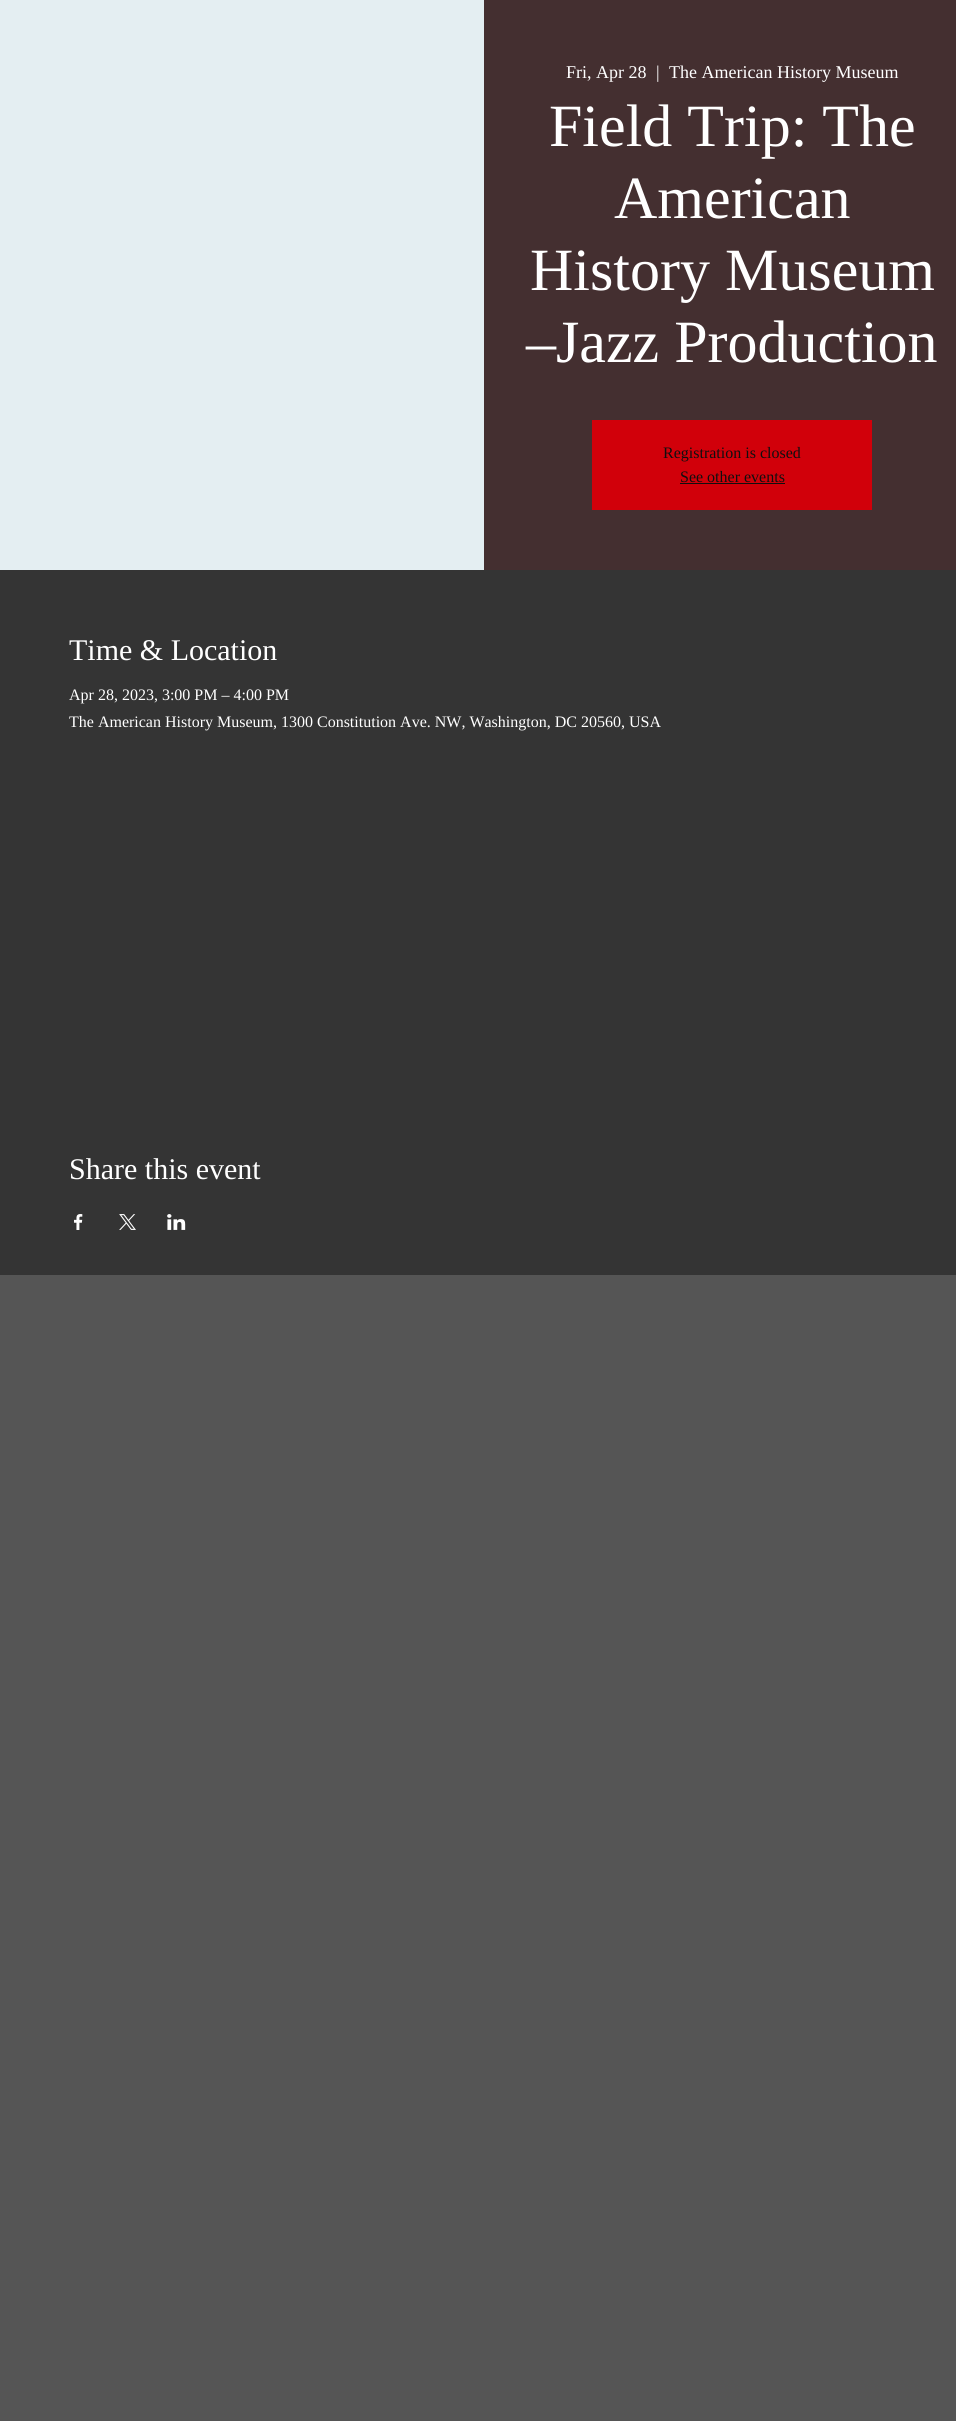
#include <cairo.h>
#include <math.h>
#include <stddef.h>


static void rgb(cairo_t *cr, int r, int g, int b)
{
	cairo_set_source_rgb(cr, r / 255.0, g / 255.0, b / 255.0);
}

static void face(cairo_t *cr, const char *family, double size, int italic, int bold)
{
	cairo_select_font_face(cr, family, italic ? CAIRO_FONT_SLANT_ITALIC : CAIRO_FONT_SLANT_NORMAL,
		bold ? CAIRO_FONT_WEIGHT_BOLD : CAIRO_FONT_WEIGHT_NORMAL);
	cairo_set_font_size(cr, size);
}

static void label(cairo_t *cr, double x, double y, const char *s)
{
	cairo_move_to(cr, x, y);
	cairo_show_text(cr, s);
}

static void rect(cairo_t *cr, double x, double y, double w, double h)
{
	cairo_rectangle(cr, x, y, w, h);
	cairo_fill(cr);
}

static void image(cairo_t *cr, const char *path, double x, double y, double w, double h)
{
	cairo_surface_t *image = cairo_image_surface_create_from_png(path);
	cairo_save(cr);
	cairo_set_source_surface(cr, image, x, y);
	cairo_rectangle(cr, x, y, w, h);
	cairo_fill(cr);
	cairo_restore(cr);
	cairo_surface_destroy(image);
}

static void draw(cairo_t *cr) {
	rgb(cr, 85, 85, 85);
	cairo_paint(cr);
	rgb(cr, 228, 238, 242);
	rect(cr, 0, 0, 484, 570);
	rgb(cr, 68, 47, 48);
	rect(cr, 484, 0, 472, 570);
	face(cr, "Liberation Serif", 18, 0, 0);
	rgb(cr, 255, 255, 255);
	label(cr, 566, 78, "Fri, Apr 28");
	label(cr, 656, 78, "|");
	label(cr, 669, 78, "The American History Museum");
	face(cr, "Liberation Serif", 60, 0, 0);
	label(cr, 549, 146, "Field Trip: The");
	label(cr, 614, 218, "American");
	label(cr, 530, 290, "History Museum");
	label(cr, 526, 362, "–Jazz Production");
	rgb(cr, 209, 0, 10);
	rect(cr, 592, 420, 280, 90);
	face(cr, "Liberation Serif", 16, 0, 0);
	rgb(cr, 16, 15, 15);
	label(cr, 663, 458, "Registration is closed");
	label(cr, 680, 482, "See other events");
	rect(cr, 680, 483, 105, 1);
	rgb(cr, 52, 52, 52);
	rect(cr, 0, 570, 956, 705);
	face(cr, "Liberation Serif", 30, 0, 0);
	rgb(cr, 255, 255, 255);
	label(cr, 69, 660, "Time & Location");
	face(cr, "Liberation Serif", 16, 0, 0);
	label(cr, 69, 700, "Apr 28, 2023, 3:00 PM – 4:00 PM");
	label(cr, 69, 727, "The American History Museum, 1300 Constitution Ave. NW, Washington, DC 20560, USA");
	face(cr, "Liberation Serif", 30, 0, 0);
	label(cr, 69, 1179, "Share this event");
	image(cr, "image0.png", 74, 1214, 9, 16);
	image(cr, "image1.png", 119, 1214, 17, 16);
	image(cr, "image2.png", 167, 1214, 19, 16);
}

int main(void) {
	cairo_surface_t *surface = cairo_image_surface_create(CAIRO_FORMAT_RGB24, 956, 2421);
	cairo_t *cr = cairo_create(surface);
	cairo_font_options_t *options = cairo_font_options_create();
	cairo_font_options_set_hint_metrics(options, CAIRO_HINT_METRICS_OFF);
	cairo_font_options_set_hint_style(options, CAIRO_HINT_STYLE_NONE);
	cairo_set_font_options(cr, options);
	cairo_set_miter_limit(cr, 4);
	draw(cr);
	cairo_surface_write_to_png(surface, "render.png");
	cairo_font_options_destroy(options);
	cairo_destroy(cr);
	cairo_surface_destroy(surface);
	return 0;
}
